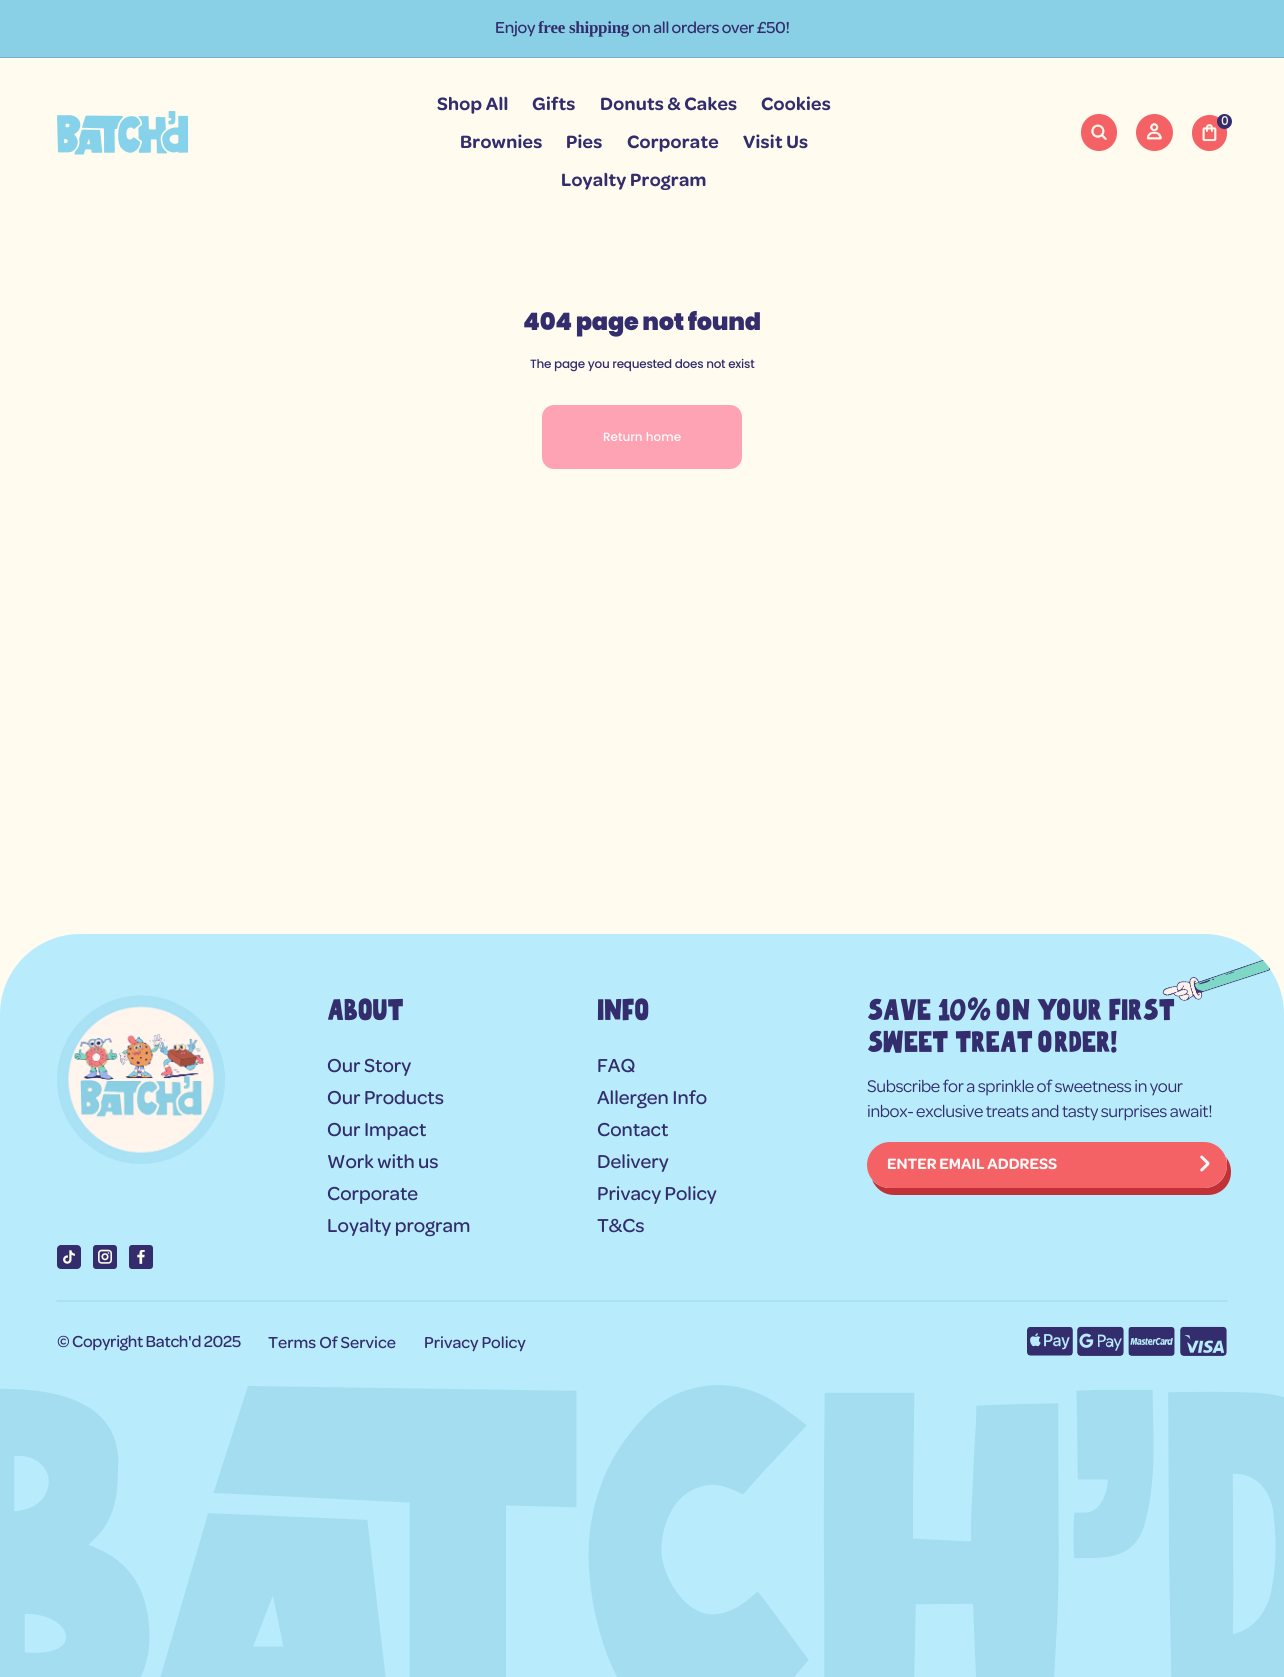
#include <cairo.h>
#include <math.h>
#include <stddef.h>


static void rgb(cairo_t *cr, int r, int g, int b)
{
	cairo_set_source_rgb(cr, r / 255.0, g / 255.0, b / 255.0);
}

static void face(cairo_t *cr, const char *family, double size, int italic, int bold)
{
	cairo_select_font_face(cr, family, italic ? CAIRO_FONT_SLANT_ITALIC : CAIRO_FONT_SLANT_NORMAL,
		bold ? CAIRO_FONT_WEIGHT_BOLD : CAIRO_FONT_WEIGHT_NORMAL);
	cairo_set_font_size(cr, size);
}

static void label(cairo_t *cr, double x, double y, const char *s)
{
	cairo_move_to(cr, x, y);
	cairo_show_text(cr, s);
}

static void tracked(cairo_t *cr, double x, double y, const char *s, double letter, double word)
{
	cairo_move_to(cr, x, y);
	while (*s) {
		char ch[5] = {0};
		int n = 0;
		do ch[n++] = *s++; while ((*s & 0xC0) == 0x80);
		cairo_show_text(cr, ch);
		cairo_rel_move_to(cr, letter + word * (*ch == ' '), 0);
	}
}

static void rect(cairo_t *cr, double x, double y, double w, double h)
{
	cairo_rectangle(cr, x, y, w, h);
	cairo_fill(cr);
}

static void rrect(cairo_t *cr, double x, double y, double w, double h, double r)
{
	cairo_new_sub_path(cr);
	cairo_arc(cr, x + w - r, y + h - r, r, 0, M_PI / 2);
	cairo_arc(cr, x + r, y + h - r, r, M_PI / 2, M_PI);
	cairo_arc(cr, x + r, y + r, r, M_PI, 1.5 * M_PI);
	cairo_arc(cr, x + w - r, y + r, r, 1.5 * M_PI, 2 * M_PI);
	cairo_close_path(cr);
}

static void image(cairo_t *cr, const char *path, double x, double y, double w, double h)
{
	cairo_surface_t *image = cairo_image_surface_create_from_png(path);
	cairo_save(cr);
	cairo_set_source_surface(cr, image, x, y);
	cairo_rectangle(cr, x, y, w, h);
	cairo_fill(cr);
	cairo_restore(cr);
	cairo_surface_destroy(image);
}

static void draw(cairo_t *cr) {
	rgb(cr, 255, 252, 239);
	cairo_paint(cr);
	rgb(cr, 137, 207, 229);
	rect(cr, 0, 0, 1284, 57);
	rgb(cr, 120, 175, 205);
	rect(cr, 0, 57, 1284, 1);
	face(cr, "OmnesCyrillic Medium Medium", 17, 0, 0);
	rgb(cr, 51, 45, 109);
	tracked(cr, 495, 33, "Enjoy", -0.3, 0);
	face(cr, "Liberation Serif", 17, 0, 1);
	tracked(cr, 538, 33, "free shipping", -0.3, 0);
	face(cr, "OmnesCyrillic Medium Medium", 17, 0, 0);
	tracked(cr, 632, 33, "on all orders over £50!", -0.3, 0);
	image(cr, "image0.png", 57, 111, 131, 44);
	face(cr, "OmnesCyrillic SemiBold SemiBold", 19, 0, 0);
	tracked(cr, 437, 110, "Shop All", 0.25, 0);
	tracked(cr, 532, 110, "Gifts", 0.25, 0);
	tracked(cr, 600, 110, "Donuts & Cakes", 0.25, 0);
	tracked(cr, 761, 110, "Cookies", 0.25, 0);
	tracked(cr, 460, 148, "Brownies", 0.25, 0);
	tracked(cr, 566, 148, "Pies", 0.25, 0);
	tracked(cr, 627, 148, "Corporate", 0.25, 0);
	tracked(cr, 743, 148, "Visit Us", 0.25, 0);
	tracked(cr, 561, 186, "Loyalty Program", 0.25, 0);
	image(cr, "image1.png", 1081, 114, 36, 37);
	image(cr, "image2.png", 1136, 114, 37, 37);
	image(cr, "image3.png", 1192, 115, 35, 36);
	cairo_arc(cr, 1224.5, 121.5, 7.5, 0, 2 * M_PI);
	cairo_fill(cr);
	face(cr, "Poppins Medium", 12, 0, 0);
	rgb(cr, 255, 250, 250);
	label(cr, 1221, 125, "0");
	face(cr, "Poppins Black", 24, 0, 0);
	rgb(cr, 51, 45, 109);
	tracked(cr, 523, 330, "404 page not found", -0.25, 0);
	face(cr, "Poppins Medium", 12, 0, 0);
	tracked(cr, 530, 368, "The page you requested does not exist", -0.25, 0);
	rgb(cr, 254, 163, 180);
	rrect(cr, 542, 405, 200, 64, 12);
	cairo_fill(cr);
	rgb(cr, 255, 250, 250);
	label(cr, 603, 441, "Return home");
	rgb(cr, 184, 236, 253);
	cairo_new_path(cr);
	cairo_move_to(cr, 80, 934);
	cairo_line_to(cr, 1204, 934);
	cairo_curve_to(cr, 1248, 934, 1284, 970, 1284, 1014);
	cairo_line_to(cr, 1284, 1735);
	cairo_line_to(cr, 0, 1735);
	cairo_line_to(cr, 0, 1014);
	cairo_curve_to(cr, 0, 970, 36, 934, 80, 934);
	cairo_close_path(cr);
	cairo_fill(cr);
	image(cr, "image4.png", 57, 995, 168, 169);
	face(cr, "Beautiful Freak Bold", 30, 0, 1);
	rgb(cr, 51, 45, 109);
	tracked(cr, 327, 1020, "about", 0.6, 0);
	face(cr, "OmnesCyrillic Medium Medium", 20, 0, 0);
	label(cr, 327, 1072, "Our Story");
	label(cr, 327, 1104, "Our Products");
	label(cr, 327, 1136, "Our Impact");
	label(cr, 327, 1168, "Work with us");
	label(cr, 327, 1200, "Corporate");
	label(cr, 327, 1232, "Loyalty program");
	face(cr, "Beautiful Freak Bold", 30, 0, 1);
	tracked(cr, 597, 1020, "info", 0.6, 0);
	face(cr, "OmnesCyrillic Medium Medium", 20, 0, 0);
	label(cr, 597, 1072, "FAQ");
	label(cr, 597, 1104, "Allergen Info");
	label(cr, 597, 1136, "Contact");
	label(cr, 597, 1168, "Delivery");
	label(cr, 597, 1200, "Privacy Policy");
	label(cr, 597, 1232, "T&Cs");
	face(cr, "Beautiful Freak Bold", 30, 0, 1);
	tracked(cr, 867, 1020, "SAVE 10% ON YOUR FIRST", 0.6, 0);
	image(cr, "image5.png", 1162, 960, 108, 41);
	tracked(cr, 867, 1052, "SWEET TREAT ORDER!", 0.6, 0);
	face(cr, "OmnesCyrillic", 18, 0, 0);
	tracked(cr, 867, 1092, "Subscribe for a sprinkle of sweetness in your", -0.35, 0);
	tracked(cr, 867, 1117, "inbox- exclusive treats and tasty surprises await!", -0.35, 0);
	rgb(cr, 193, 49, 54);
	cairo_new_path(cr);
	cairo_move_to(cr, 872, 1180);
	cairo_curve_to(cr, 876, 1189, 884, 1195, 894, 1195);
	cairo_line_to(cr, 1208, 1195);
	cairo_curve_to(cr, 1221, 1195, 1231, 1185, 1231, 1172);
	cairo_curve_to(cr, 1231, 1166, 1229, 1161, 1226, 1157);
	cairo_curve_to(cr, 1227, 1160, 1227, 1162, 1227, 1165);
	cairo_curve_to(cr, 1227, 1178, 1217, 1188, 1204, 1188);
	cairo_line_to(cr, 890, 1188);
	cairo_curve_to(cr, 883, 1188, 877, 1185, 872, 1180);
	cairo_close_path(cr);
	cairo_fill(cr);
	rgb(cr, 244, 98, 102);
	rrect(cr, 867, 1142, 360, 46, 23);
	cairo_fill(cr);
	face(cr, "OmnesCyrillic SemiBold SemiBold", 16, 0, 0);
	rgb(cr, 255, 250, 250);
	label(cr, 887, 1169, "ENTER EMAIL ADDRESS");
	image(cr, "image6.png", 1200, 1155, 10, 17);
	image(cr, "image7.png", 57, 1245, 24, 24);
	image(cr, "image8.png", 93, 1245, 24, 24);
	image(cr, "image9.png", 129, 1245, 24, 24);
	rgb(cr, 169, 225, 244);
	cairo_new_path(cr);
	cairo_move_to(cr, 56, 1300);
	cairo_line_to(cr, 1228, 1300);
	cairo_line_to(cr, 1227, 1302);
	cairo_line_to(cr, 57, 1302);
	cairo_close_path(cr);
	cairo_fill(cr);
	face(cr, "OmnesCyrillic Medium Medium", 17, 0, 0);
	rgb(cr, 51, 45, 109);
	tracked(cr, 57, 1347, "© Copyright Batch'd 2025", -0.3, 0);
	label(cr, 268, 1348, "Terms Of Service");
	label(cr, 424, 1348, "Privacy Policy");
	image(cr, "image10.png", 1027, 1327, 46, 29);
	image(cr, "image11.png", 1077, 1326, 47, 30);
	image(cr, "image12.png", 1128, 1327, 47, 29);
	image(cr, "image13.png", 1180, 1326, 47, 30);
	image(cr, "image14.png", 0, 1385, 1284, 292);
}

int main(void) {
	cairo_surface_t *surface = cairo_image_surface_create(CAIRO_FORMAT_RGB24, 1284, 1677);
	cairo_t *cr = cairo_create(surface);
	cairo_font_options_t *options = cairo_font_options_create();
	cairo_font_options_set_hint_metrics(options, CAIRO_HINT_METRICS_OFF);
	cairo_font_options_set_hint_style(options, CAIRO_HINT_STYLE_NONE);
	cairo_set_font_options(cr, options);
	cairo_set_miter_limit(cr, 4);
	draw(cr);
	cairo_surface_write_to_png(surface, "render.png");
	cairo_font_options_destroy(options);
	cairo_destroy(cr);
	cairo_surface_destroy(surface);
	return 0;
}
